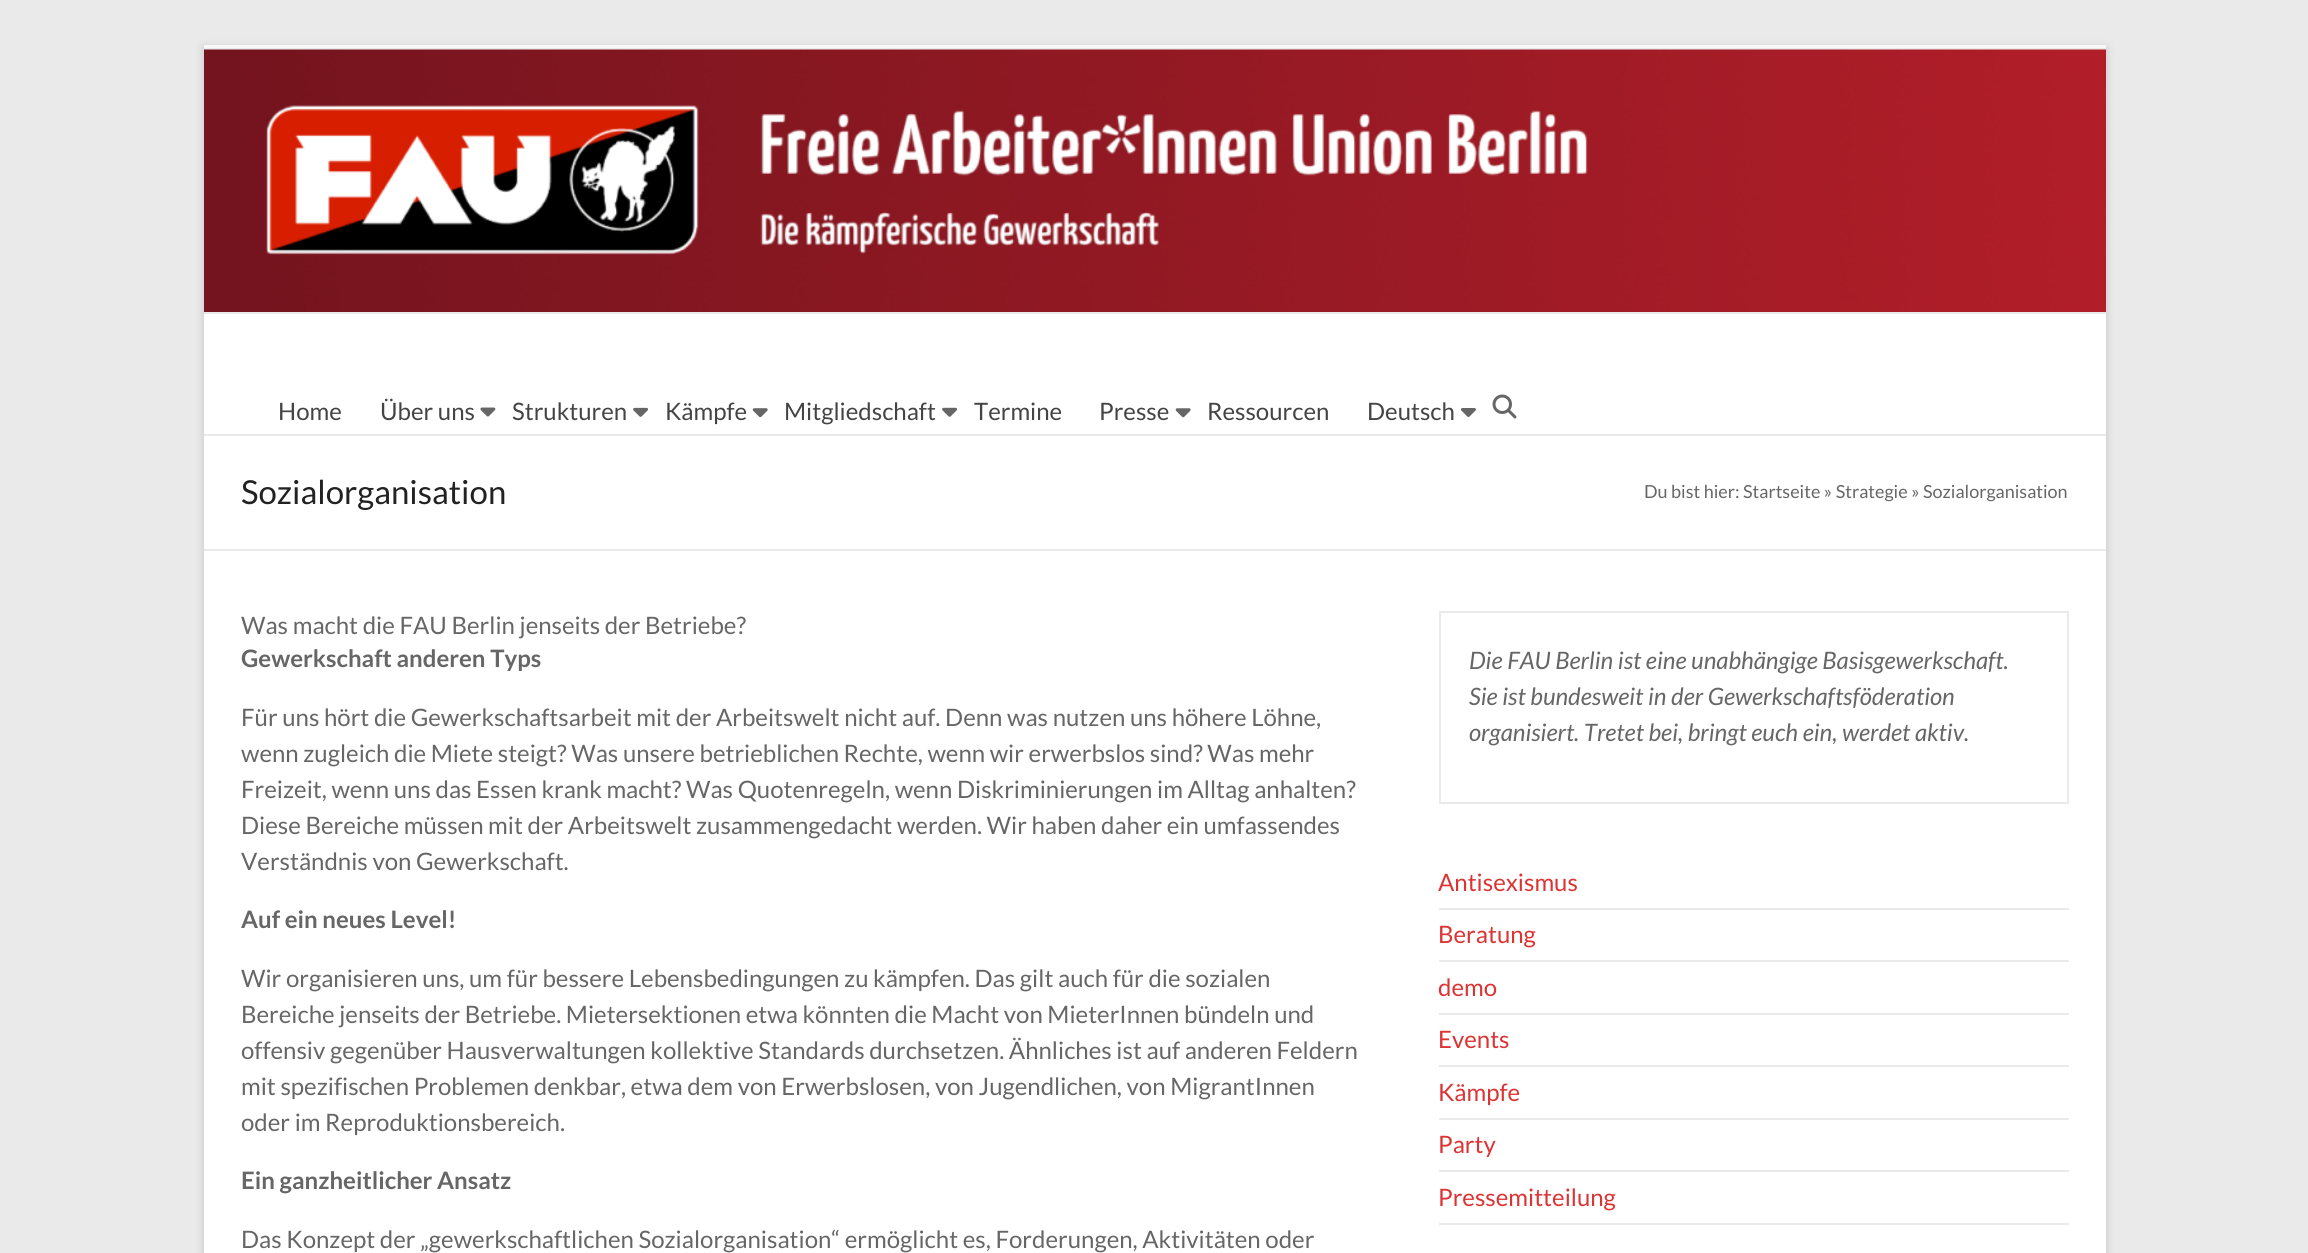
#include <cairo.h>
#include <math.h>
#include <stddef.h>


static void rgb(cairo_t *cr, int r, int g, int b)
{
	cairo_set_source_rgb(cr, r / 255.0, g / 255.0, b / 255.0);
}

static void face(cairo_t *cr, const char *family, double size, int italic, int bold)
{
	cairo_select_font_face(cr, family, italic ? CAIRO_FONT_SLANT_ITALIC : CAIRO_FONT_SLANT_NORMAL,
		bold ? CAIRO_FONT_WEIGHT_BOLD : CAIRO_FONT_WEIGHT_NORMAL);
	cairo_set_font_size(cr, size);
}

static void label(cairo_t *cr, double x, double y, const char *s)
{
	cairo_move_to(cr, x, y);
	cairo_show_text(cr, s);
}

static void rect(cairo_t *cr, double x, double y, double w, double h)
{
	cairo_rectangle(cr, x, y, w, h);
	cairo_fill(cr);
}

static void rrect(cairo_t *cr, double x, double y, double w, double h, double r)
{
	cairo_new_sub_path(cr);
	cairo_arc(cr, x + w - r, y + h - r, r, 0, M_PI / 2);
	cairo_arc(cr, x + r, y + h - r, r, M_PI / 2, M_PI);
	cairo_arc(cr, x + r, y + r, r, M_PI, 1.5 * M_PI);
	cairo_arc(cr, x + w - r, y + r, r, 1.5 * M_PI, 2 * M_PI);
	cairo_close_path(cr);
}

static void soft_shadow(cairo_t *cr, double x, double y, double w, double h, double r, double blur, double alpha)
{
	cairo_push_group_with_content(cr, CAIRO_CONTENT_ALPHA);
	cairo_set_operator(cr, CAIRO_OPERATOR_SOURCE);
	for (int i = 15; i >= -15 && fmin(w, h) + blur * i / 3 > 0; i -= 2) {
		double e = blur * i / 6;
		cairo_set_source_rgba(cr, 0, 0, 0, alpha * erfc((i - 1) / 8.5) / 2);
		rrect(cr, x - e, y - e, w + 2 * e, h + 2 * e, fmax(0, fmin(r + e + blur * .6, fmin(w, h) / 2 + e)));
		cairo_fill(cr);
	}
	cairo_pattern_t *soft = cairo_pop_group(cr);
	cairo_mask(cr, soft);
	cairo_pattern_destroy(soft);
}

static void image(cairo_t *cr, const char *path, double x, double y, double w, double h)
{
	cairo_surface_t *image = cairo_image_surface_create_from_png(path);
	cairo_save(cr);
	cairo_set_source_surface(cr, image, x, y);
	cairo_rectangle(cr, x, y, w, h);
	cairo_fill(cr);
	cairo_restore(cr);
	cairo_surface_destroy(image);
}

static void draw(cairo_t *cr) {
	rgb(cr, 234, 234, 234);
	cairo_paint(cr);
	rgb(cr, 100, 100, 100);
	soft_shadow(cr, 204, 48, 1902, 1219, 0, 4.5, 0.3);
	rgb(cr, 255, 255, 255);
	rect(cr, 204, 314, 1902, 939);
	rgb(cr, 248, 248, 248);
	rect(cr, 204, 45, 1902, 3);
	rgb(cr, 234, 234, 234);
	rect(cr, 204, 48, 1902, 2);
	image(cr, "image0.png", 204, 49, 1902, 263);
	rect(cr, 204, 312, 1902, 2);
	rect(cr, 204, 434, 1902, 2);
	face(cr, "Lato", 24, 0, 0);
	rgb(cr, 68, 68, 68);
	label(cr, 278, 420, "Home");
	label(cr, 380, 420, "Über uns");
	image(cr, "image1.png", 480, 407, 16, 10);
	label(cr, 512, 420, "Strukturen");
	image(cr, "image2.png", 633, 407, 15, 10);
	label(cr, 665, 420, "Kämpfe");
	image(cr, "image3.png", 752, 408, 16, 10);
	label(cr, 784, 420, "Mitgliedschaft");
	image(cr, "image4.png", 942, 407, 16, 10);
	label(cr, 974, 420, "Termine");
	label(cr, 1099, 420, "Presse");
	image(cr, "image5.png", 1175, 408, 16, 10);
	label(cr, 1207, 420, "Ressourcen");
	label(cr, 1367, 420, "Deutsch");
	image(cr, "image6.png", 1461, 408, 15, 9);
	image(cr, "image7.png", 1492, 394, 25, 25);
	rgb(cr, 234, 234, 234);
	rect(cr, 204, 549, 1902, 2);
	face(cr, "Lato", 33, 0, 0);
	rgb(cr, 34, 34, 34);
	label(cr, 241, 504, "Sozialorganisation");
	face(cr, "Lato", 18, 0, 0);
	rgb(cr, 102, 102, 102);
	label(cr, 1644, 498, "Du bist hier: Startseite » Strategie » Sozialorganisation");
	face(cr, "Lato", 24, 0, 0);
	label(cr, 241, 634, "Was macht die FAU Berlin jenseits der Betriebe?");
	face(cr, "Lato", 24, 0, 1);
	label(cr, 241, 667, "Gewerkschaft anderen Typs");
	face(cr, "Lato", 24, 0, 0);
	label(cr, 241, 726, "Für uns hört die Gewerkschaftsarbeit mit der Arbeitswelt nicht auf. Denn was nutzen uns höhere Löhne,");
	label(cr, 241, 762, "wenn zugleich die Miete steigt? Was unsere betrieblichen Rechte, wenn wir erwerbslos sind? Was mehr");
	label(cr, 241, 798, "Freizeit, wenn uns das Essen krank macht? Was Quotenregeln, wenn Diskriminierungen im Alltag anhalten?");
	label(cr, 241, 834, "Diese Bereiche müssen mit der Arbeitswelt zusammengedacht werden. Wir haben daher ein umfassendes");
	label(cr, 241, 870, "Verständnis von Gewerkschaft.");
	face(cr, "Lato", 24, 0, 1);
	label(cr, 241, 928, "Auf ein neues Level!");
	face(cr, "Lato", 24, 0, 0);
	label(cr, 241, 987, "Wir organisieren uns, um für bessere Lebensbedingungen zu kämpfen. Das gilt auch für die sozialen");
	label(cr, 241, 1023, "Bereiche jenseits der Betriebe. Mietersektionen etwa könnten die Macht von MieterInnen bündeln und");
	label(cr, 241, 1059, "offensiv gegenüber Hausverwaltungen kollektive Standards durchsetzen. Ähnliches ist auf anderen Feldern");
	label(cr, 241, 1095, "mit spezifischen Problemen denkbar, etwa dem von Erwerbslosen, von Jugendlichen, von MigrantInnen");
	label(cr, 241, 1131, "oder im Reproduktionsbereich.");
	face(cr, "Lato", 24, 0, 1);
	label(cr, 241, 1189, "Ein ganzheitlicher Ansatz");
	face(cr, "Lato", 24, 0, 0);
	label(cr, 241, 1248, "Das Konzept der „gewerkschaftlichen Sozialorganisation“ ermöglicht es, Forderungen, Aktivitäten oder");
	cairo_rectangle(cr, 1440, 612, 628, 191);
	rgb(cr, 234, 234, 234);
	cairo_stroke(cr);
	face(cr, "Lato", 24, 1, 0);
	rgb(cr, 102, 102, 102);
	label(cr, 1469, 669, "Die FAU Berlin ist eine unabhängige Basisgewerkschaft.");
	label(cr, 1469, 705, "Sie ist bundesweit in der Gewerkschaftsföderation");
	label(cr, 1469, 741, "organisiert. Tretet bei, bringt euch ein, werdet aktiv.");
	rgb(cr, 234, 234, 234);
	rect(cr, 1439, 908, 630, 2);
	face(cr, "Lato", 24, 0, 0);
	rgb(cr, 221, 51, 51);
	label(cr, 1438, 891, "Antisexismus");
	rgb(cr, 234, 234, 234);
	rect(cr, 1439, 960, 630, 2);
	rgb(cr, 221, 51, 51);
	label(cr, 1438, 943, "Beratung");
	rgb(cr, 234, 234, 234);
	rect(cr, 1439, 1013, 630, 2);
	rgb(cr, 221, 51, 51);
	label(cr, 1438, 996, "demo");
	rgb(cr, 234, 234, 234);
	rect(cr, 1439, 1065, 630, 2);
	rgb(cr, 221, 51, 51);
	label(cr, 1438, 1048, "Events");
	rgb(cr, 234, 234, 234);
	rect(cr, 1439, 1118, 630, 2);
	rgb(cr, 221, 51, 51);
	label(cr, 1438, 1101, "Kämpfe");
	rgb(cr, 234, 234, 234);
	rect(cr, 1439, 1170, 630, 2);
	rgb(cr, 221, 51, 51);
	label(cr, 1438, 1153, "Party");
	rgb(cr, 234, 234, 234);
	rect(cr, 1439, 1223, 630, 2);
	rgb(cr, 221, 51, 51);
	label(cr, 1438, 1206, "Pressemitteilung");
}

int main(void) {
	cairo_surface_t *surface = cairo_image_surface_create(CAIRO_FORMAT_RGB24, 2308, 1253);
	cairo_t *cr = cairo_create(surface);
	cairo_font_options_t *options = cairo_font_options_create();
	cairo_font_options_set_hint_metrics(options, CAIRO_HINT_METRICS_OFF);
	cairo_font_options_set_hint_style(options, CAIRO_HINT_STYLE_NONE);
	cairo_set_font_options(cr, options);
	cairo_set_miter_limit(cr, 4);
	draw(cr);
	cairo_surface_write_to_png(surface, "render.png");
	cairo_font_options_destroy(options);
	cairo_destroy(cr);
	cairo_surface_destroy(surface);
	return 0;
}
